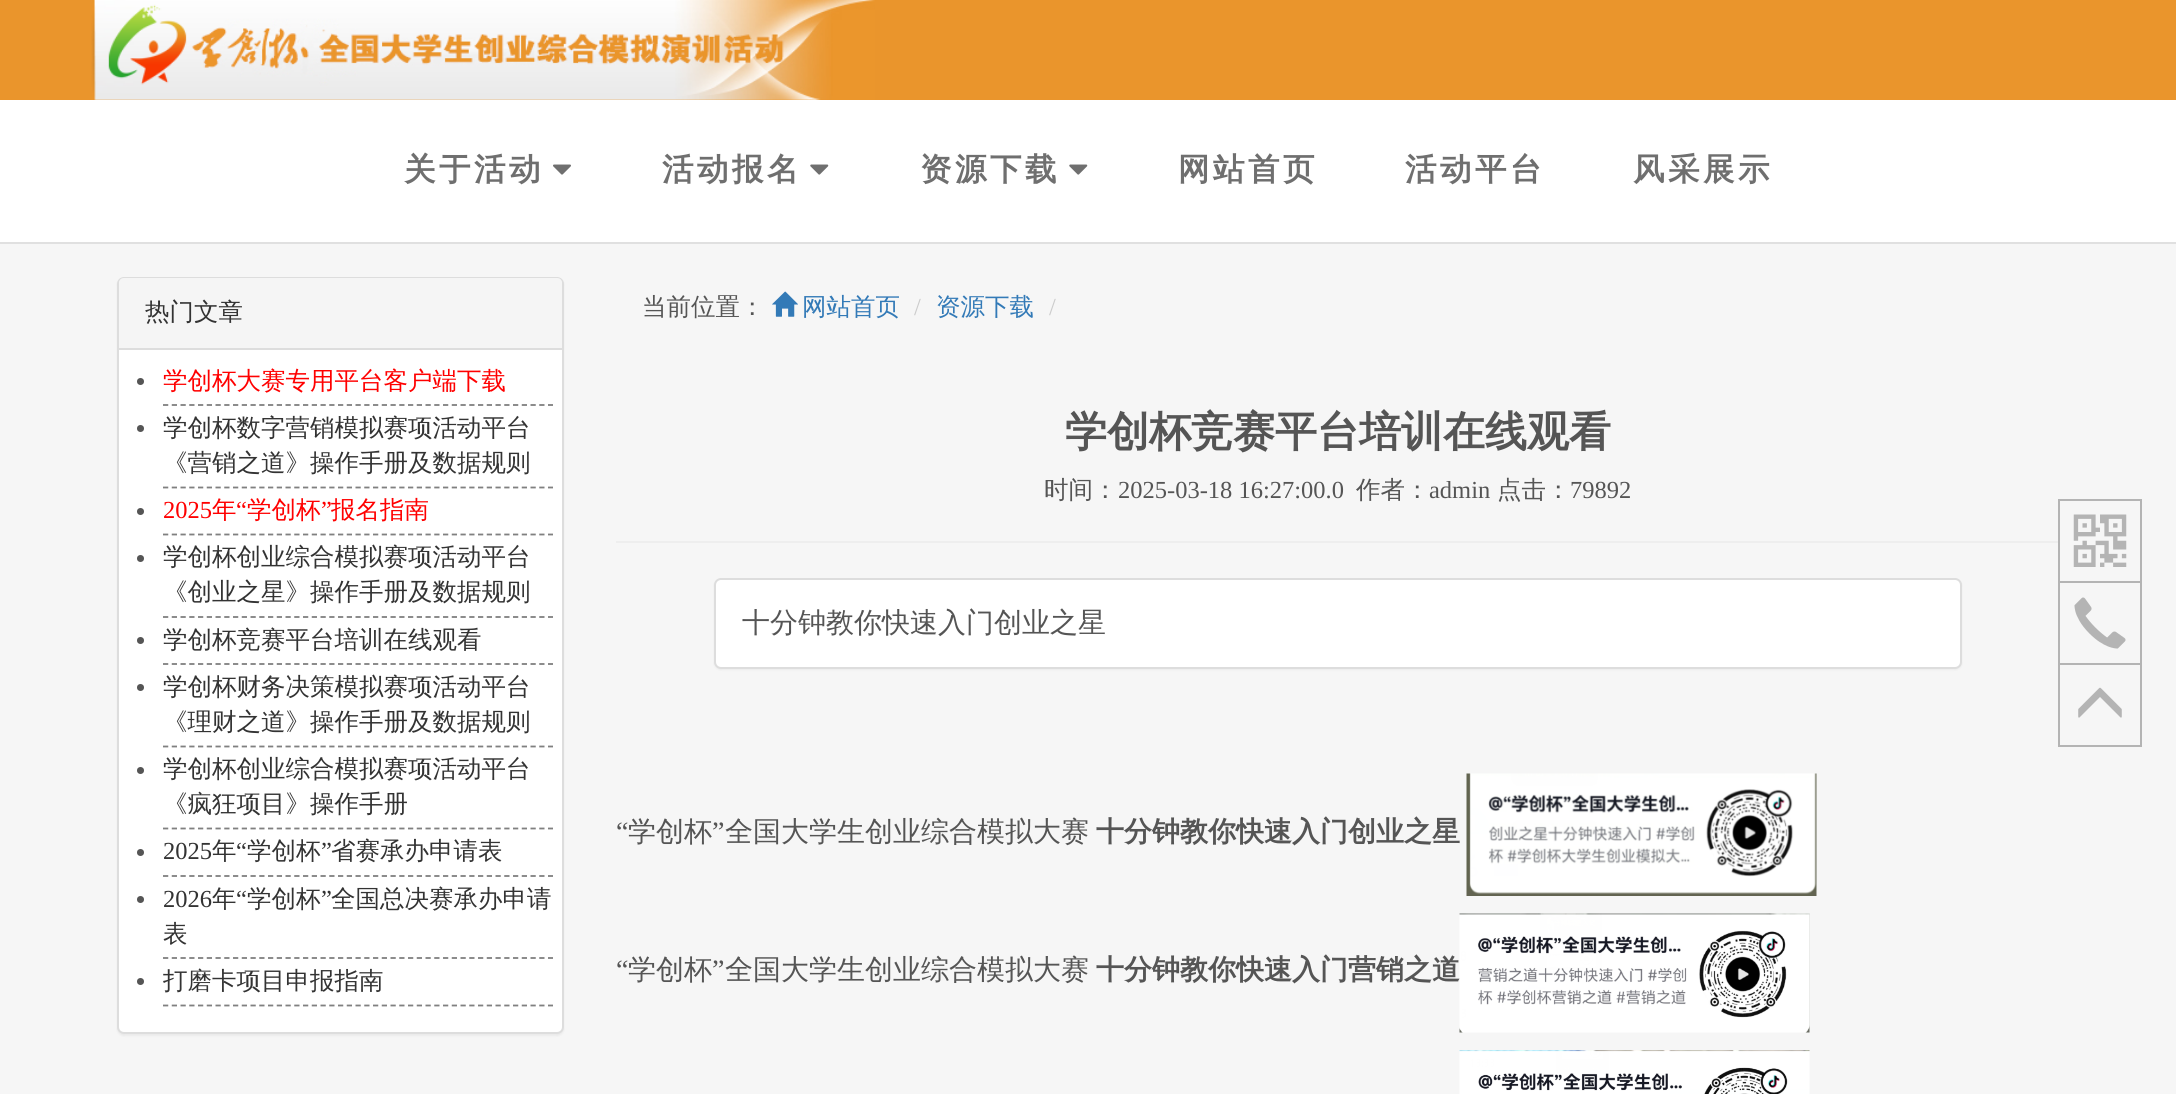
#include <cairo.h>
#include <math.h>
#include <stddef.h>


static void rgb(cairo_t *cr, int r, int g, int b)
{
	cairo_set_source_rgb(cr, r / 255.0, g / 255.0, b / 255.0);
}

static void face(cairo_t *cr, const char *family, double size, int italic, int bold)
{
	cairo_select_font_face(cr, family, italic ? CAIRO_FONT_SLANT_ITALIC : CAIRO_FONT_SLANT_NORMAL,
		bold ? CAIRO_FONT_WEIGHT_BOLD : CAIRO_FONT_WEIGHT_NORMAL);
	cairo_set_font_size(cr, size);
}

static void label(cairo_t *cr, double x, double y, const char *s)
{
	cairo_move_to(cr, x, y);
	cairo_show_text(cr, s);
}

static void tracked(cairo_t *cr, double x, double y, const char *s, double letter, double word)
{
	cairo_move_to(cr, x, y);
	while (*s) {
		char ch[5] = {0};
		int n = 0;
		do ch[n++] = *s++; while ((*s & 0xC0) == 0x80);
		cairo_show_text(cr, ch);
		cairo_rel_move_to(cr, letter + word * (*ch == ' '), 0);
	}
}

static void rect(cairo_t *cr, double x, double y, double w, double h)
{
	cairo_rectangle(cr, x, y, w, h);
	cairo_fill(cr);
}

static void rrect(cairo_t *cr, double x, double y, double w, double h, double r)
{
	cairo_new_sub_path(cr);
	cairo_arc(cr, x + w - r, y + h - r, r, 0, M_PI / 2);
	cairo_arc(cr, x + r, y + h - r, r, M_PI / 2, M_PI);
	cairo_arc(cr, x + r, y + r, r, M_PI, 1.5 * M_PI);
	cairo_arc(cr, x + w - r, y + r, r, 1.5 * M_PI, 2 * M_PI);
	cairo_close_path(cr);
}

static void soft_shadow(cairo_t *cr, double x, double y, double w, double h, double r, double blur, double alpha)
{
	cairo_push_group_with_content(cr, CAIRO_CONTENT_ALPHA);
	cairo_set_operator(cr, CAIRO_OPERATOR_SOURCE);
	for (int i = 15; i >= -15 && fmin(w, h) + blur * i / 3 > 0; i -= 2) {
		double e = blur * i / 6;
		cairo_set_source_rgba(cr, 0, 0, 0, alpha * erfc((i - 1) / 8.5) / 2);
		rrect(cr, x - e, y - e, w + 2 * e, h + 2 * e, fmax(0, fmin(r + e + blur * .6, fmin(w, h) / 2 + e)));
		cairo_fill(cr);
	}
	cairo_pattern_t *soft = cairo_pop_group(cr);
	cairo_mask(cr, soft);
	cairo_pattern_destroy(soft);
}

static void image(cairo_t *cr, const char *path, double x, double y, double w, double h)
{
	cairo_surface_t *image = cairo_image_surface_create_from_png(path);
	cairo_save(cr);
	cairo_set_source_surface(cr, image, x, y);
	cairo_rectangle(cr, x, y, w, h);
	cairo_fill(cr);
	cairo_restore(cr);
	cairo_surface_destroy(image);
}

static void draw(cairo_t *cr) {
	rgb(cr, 246, 246, 246);
	cairo_paint(cr);
	rgb(cr, 234, 149, 44);
	rect(cr, 0, 0, 2176, 100);
	image(cr, "image0.png", 91, 0, 784, 100);
	rgb(cr, 255, 255, 255);
	rect(cr, 0, 100, 2176, 142);
	rgb(cr, 224, 224, 224);
	rect(cr, 0, 242, 2176, 2);
	face(cr, "WenQuanYi Zen Hei", 31.5, 0, 1);
	rgb(cr, 111, 111, 111);
	tracked(cr, 404, 180, "关于活动", 3.5, 0);
	image(cr, "image1.png", 553, 164, 18, 11);
	tracked(cr, 662, 180, "活动报名", 3.5, 0);
	image(cr, "image2.png", 810, 164, 19, 11);
	tracked(cr, 920, 180, "资源下载", 3.5, 0);
	image(cr, "image2.png", 1069, 164, 19, 11);
	tracked(cr, 1178, 180, "网站首页", 3.5, 0);
	tracked(cr, 1405, 180, "活动平台", 3.5, 0);
	tracked(cr, 1633, 180, "风采展示", 3.5, 0);
	rgb(cr, 0, 0, 0);
	soft_shadow(cr, 117, 278, 447, 758, 7, 1, 0.05);
	rgb(cr, 255, 255, 255);
	rrect(cr, 118, 278, 445, 755, 6);
	cairo_fill_preserve(cr);
	rgb(cr, 221, 221, 221);
	cairo_stroke(cr);
	rgb(cr, 245, 245, 245);
	cairo_new_path(cr);
	cairo_move_to(cr, 124, 278);
	cairo_line_to(cr, 557, 278);
	cairo_curve_to(cr, 560, 278, 562, 280, 562, 283);
	cairo_line_to(cr, 562, 350);
	cairo_line_to(cr, 119, 350);
	cairo_line_to(cr, 119, 283);
	cairo_curve_to(cr, 119, 280, 121, 278, 124, 278);
	cairo_close_path(cr);
	cairo_fill(cr);
	rgb(cr, 221, 221, 221);
	rect(cr, 119, 348, 443, 2);
	face(cr, "WenQuanYi Zen Hei Medium", 24.5, 0, 0);
	rgb(cr, 51, 51, 51);
	label(cr, 145, 320, "热门文章");
	cairo_new_path(cr);
	cairo_move_to(cr, 163, 405);
	cairo_line_to(cr, 553, 405);
	rgb(cr, 128, 128, 128);
	cairo_set_line_width(cr, 1.8);
	cairo_set_dash(cr, (double[]){5.25, 3.5}, 2, 0);
	cairo_stroke(cr);
	rgb(cr, 85, 85, 85);
	cairo_arc(cr, 140.5, 381.5, 3.5, 0, 2 * M_PI);
	cairo_fill(cr);
	rgb(cr, 255, 0, 0);
	label(cr, 163, 389, "学创杯大赛专用平台客户端下载");
	cairo_new_path(cr);
	cairo_move_to(cr, 163, 487.5);
	cairo_line_to(cr, 553, 487.5);
	rgb(cr, 128, 128, 128);
	cairo_stroke(cr);
	rgb(cr, 85, 85, 85);
	cairo_arc(cr, 140.5, 428.5, 3.5, 0, 2 * M_PI);
	cairo_fill(cr);
	rgb(cr, 51, 51, 51);
	label(cr, 163, 436, "学创杯数字营销模拟赛项活动平台");
	label(cr, 163, 471, "《营销之道》操作手册及数据规则");
	cairo_new_path(cr);
	cairo_move_to(cr, 163, 534.5);
	cairo_line_to(cr, 553, 534.5);
	rgb(cr, 128, 128, 128);
	cairo_stroke(cr);
	face(cr, "Liberation Serif", 24.5, 0, 0);
	rgb(cr, 255, 0, 0);
	label(cr, 163, 518, "2025");
	face(cr, "WenQuanYi Zen Hei Medium", 24.5, 0, 0);
	label(cr, 212, 518, "年");
	face(cr, "Liberation Serif", 24.5, 0, 0);
	label(cr, 236, 518, "“");
	face(cr, "WenQuanYi Zen Hei Medium", 24.5, 0, 0);
	label(cr, 247, 518, "学创杯");
	face(cr, "Liberation Serif", 24.5, 0, 0);
	label(cr, 321, 518, "”");
	face(cr, "WenQuanYi Zen Hei Medium", 24.5, 0, 0);
	label(cr, 331, 518, "报名指南");
	rgb(cr, 85, 85, 85);
	cairo_new_path(cr);
	cairo_arc(cr, 140.5, 511.5, 3.5, 0, 2 * M_PI);
	cairo_fill(cr);
	cairo_new_path(cr);
	cairo_move_to(cr, 163, 617);
	cairo_line_to(cr, 553, 617);
	rgb(cr, 128, 128, 128);
	cairo_stroke(cr);
	rgb(cr, 85, 85, 85);
	cairo_arc(cr, 140.5, 558.5, 3.5, 0, 2 * M_PI);
	cairo_fill(cr);
	rgb(cr, 51, 51, 51);
	label(cr, 163, 565, "学创杯创业综合模拟赛项活动平台");
	label(cr, 163, 600, "《创业之星》操作手册及数据规则");
	cairo_new_path(cr);
	cairo_move_to(cr, 163, 664);
	cairo_line_to(cr, 553, 664);
	rgb(cr, 128, 128, 128);
	cairo_stroke(cr);
	rgb(cr, 85, 85, 85);
	cairo_arc(cr, 140.5, 640.5, 3.5, 0, 2 * M_PI);
	cairo_fill(cr);
	rgb(cr, 51, 51, 51);
	label(cr, 163, 648, "学创杯竞赛平台培训在线观看");
	cairo_new_path(cr);
	cairo_move_to(cr, 163, 746.5);
	cairo_line_to(cr, 553, 746.5);
	rgb(cr, 128, 128, 128);
	cairo_stroke(cr);
	rgb(cr, 85, 85, 85);
	cairo_arc(cr, 140.5, 687.5, 3.5, 0, 2 * M_PI);
	cairo_fill(cr);
	rgb(cr, 51, 51, 51);
	label(cr, 163, 695, "学创杯财务决策模拟赛项活动平台");
	label(cr, 163, 730, "《理财之道》操作手册及数据规则");
	cairo_new_path(cr);
	cairo_move_to(cr, 163, 828.5);
	cairo_line_to(cr, 553, 828.5);
	rgb(cr, 128, 128, 128);
	cairo_stroke(cr);
	rgb(cr, 85, 85, 85);
	cairo_arc(cr, 140.5, 770.5, 3.5, 0, 2 * M_PI);
	cairo_fill(cr);
	rgb(cr, 51, 51, 51);
	label(cr, 163, 777, "学创杯创业综合模拟赛项活动平台");
	label(cr, 163, 812, "《疯狂项目》操作手册");
	cairo_new_path(cr);
	cairo_move_to(cr, 163, 876);
	cairo_line_to(cr, 553, 876);
	rgb(cr, 128, 128, 128);
	cairo_stroke(cr);
	face(cr, "Liberation Serif", 24.5, 0, 0);
	rgb(cr, 51, 51, 51);
	label(cr, 163, 859, "2025");
	face(cr, "WenQuanYi Zen Hei Medium", 24.5, 0, 0);
	label(cr, 212, 859, "年");
	face(cr, "Liberation Serif", 24.5, 0, 0);
	label(cr, 236, 859, "“");
	face(cr, "WenQuanYi Zen Hei Medium", 24.5, 0, 0);
	label(cr, 247, 859, "学创杯");
	face(cr, "Liberation Serif", 24.5, 0, 0);
	label(cr, 321, 859, "”");
	face(cr, "WenQuanYi Zen Hei Medium", 24.5, 0, 0);
	label(cr, 331, 859, "省赛承办申请表");
	rgb(cr, 85, 85, 85);
	cairo_new_path(cr);
	cairo_arc(cr, 140.5, 852.5, 3.5, 0, 2 * M_PI);
	cairo_fill(cr);
	cairo_new_path(cr);
	cairo_move_to(cr, 163, 958);
	cairo_line_to(cr, 553, 958);
	rgb(cr, 128, 128, 128);
	cairo_stroke(cr);
	face(cr, "Liberation Serif", 24.5, 0, 0);
	rgb(cr, 51, 51, 51);
	label(cr, 163, 907, "2026");
	face(cr, "WenQuanYi Zen Hei Medium", 24.5, 0, 0);
	label(cr, 212, 907, "年");
	face(cr, "Liberation Serif", 24.5, 0, 0);
	label(cr, 236, 907, "“");
	face(cr, "WenQuanYi Zen Hei Medium", 24.5, 0, 0);
	label(cr, 247, 907, "学创杯");
	face(cr, "Liberation Serif", 24.5, 0, 0);
	label(cr, 321, 907, "”");
	face(cr, "WenQuanYi Zen Hei Medium", 24.5, 0, 0);
	label(cr, 331, 907, "全国总决赛承办申请");
	rgb(cr, 85, 85, 85);
	cairo_new_path(cr);
	cairo_arc(cr, 140.5, 899.5, 3.5, 0, 2 * M_PI);
	cairo_fill(cr);
	rgb(cr, 51, 51, 51);
	label(cr, 163, 942, "表");
	cairo_new_path(cr);
	cairo_move_to(cr, 163, 1005.5);
	cairo_line_to(cr, 553, 1005.5);
	rgb(cr, 128, 128, 128);
	cairo_stroke(cr);
	rgb(cr, 85, 85, 85);
	cairo_arc(cr, 140.5, 981.5, 3.5, 0, 2 * M_PI);
	cairo_fill(cr);
	rgb(cr, 51, 51, 51);
	label(cr, 163, 989, "打磨卡项目申报指南");
	rgb(cr, 85, 85, 85);
	label(cr, 642, 315, "当前位置：");
	image(cr, "image3.png", 772, 291, 26, 26);
	rgb(cr, 51, 122, 183);
	label(cr, 802, 315, "网站首页");
	face(cr, "Liberation Serif", 24.5, 0, 0);
	rgb(cr, 204, 204, 204);
	label(cr, 914, 315, "/");
	face(cr, "WenQuanYi Zen Hei Medium", 24.5, 0, 0);
	rgb(cr, 51, 122, 183);
	label(cr, 936, 315, "资源下载");
	face(cr, "Liberation Serif", 24.5, 0, 0);
	rgb(cr, 204, 204, 204);
	label(cr, 1049, 315, "/");
	rgb(cr, 238, 238, 238);
	rect(cr, 616, 541, 1444, 2);
	face(cr, "WenQuanYi Zen Hei", 42, 0, 1);
	rgb(cr, 85, 85, 85);
	label(cr, 1065, 446, "学创杯竞赛平台培训在线观看");
	face(cr, "WenQuanYi Zen Hei Medium", 24.5, 0, 0);
	label(cr, 1044, 498, "时间：");
	face(cr, "Liberation Serif", 24.5, 0, 0);
	label(cr, 1118, 498, "2025-03-18 16:27:00.0");
	face(cr, "WenQuanYi Zen Hei Medium", 24.5, 0, 0);
	label(cr, 1356, 498, "作者：");
	face(cr, "Liberation Serif", 24.5, 0, 0);
	label(cr, 1429, 498, "admin");
	face(cr, "WenQuanYi Zen Hei Medium", 24.5, 0, 0);
	label(cr, 1497, 498, "点击：");
	face(cr, "Liberation Serif", 24.5, 0, 0);
	label(cr, 1570, 498, "79892");
	rgb(cr, 0, 0, 0);
	soft_shadow(cr, 714, 579, 1248, 91, 7, 1, 0.05);
	rgb(cr, 255, 255, 255);
	rrect(cr, 715, 579, 1246, 89, 6);
	cairo_fill_preserve(cr);
	rgb(cr, 221, 221, 221);
	cairo_set_line_width(cr, 2);
	cairo_set_dash(cr, NULL, 0, 0);
	cairo_stroke(cr);
	face(cr, "WenQuanYi Zen Hei Medium", 28, 0, 0);
	rgb(cr, 85, 85, 85);
	label(cr, 742, 632, "十分钟教你快速入门创业之星");
	face(cr, "Liberation Serif", 28, 0, 0);
	label(cr, 616, 841, "“");
	face(cr, "WenQuanYi Zen Hei Medium", 28, 0, 0);
	label(cr, 628, 841, "学创杯");
	face(cr, "Liberation Serif", 28, 0, 0);
	label(cr, 712, 841, "”");
	face(cr, "WenQuanYi Zen Hei Medium", 28, 0, 0);
	label(cr, 725, 841, "全国大学生创业综合模拟大赛");
	face(cr, "WenQuanYi Zen Hei", 28, 0, 1);
	label(cr, 1096, 841, "十分钟教你快速入门创业之星");
	image(cr, "image4.png", 1466, 773, 351, 123);
	face(cr, "Liberation Serif", 28, 0, 0);
	label(cr, 616, 979, "“");
	face(cr, "WenQuanYi Zen Hei Medium", 28, 0, 0);
	label(cr, 628, 979, "学创杯");
	face(cr, "Liberation Serif", 28, 0, 0);
	label(cr, 712, 979, "”");
	face(cr, "WenQuanYi Zen Hei Medium", 28, 0, 0);
	label(cr, 725, 979, "全国大学生创业综合模拟大赛");
	face(cr, "WenQuanYi Zen Hei", 28, 0, 1);
	label(cr, 1096, 979, "十分钟教你快速入门营销之道");
	image(cr, "image5.png", 1459, 913, 351, 120);
	image(cr, "image6.png", 1459, 1050, 351, 44);
	rgb(cr, 246, 246, 246);
	rect(cr, 2058, 541, 2, 2);
	rgb(cr, 180, 180, 180);
	rect(cr, 2058, 499, 84, 2);
	rect(cr, 2140, 499, 2, 82);
	rect(cr, 2058, 499, 2, 82);
	image(cr, "image7.png", 2073, 514, 54, 53);
	rect(cr, 2058, 581, 84, 2);
	rect(cr, 2140, 581, 2, 82);
	rect(cr, 2058, 581, 2, 82);
	image(cr, "image8.png", 2074, 597, 52, 52);
	cairo_rectangle(cr, 2059, 664, 82, 82);
	cairo_stroke(cr);
	image(cr, "image9.png", 2078, 687, 44, 31);
}

int main(void) {
	cairo_surface_t *surface = cairo_image_surface_create(CAIRO_FORMAT_RGB24, 2176, 1094);
	cairo_t *cr = cairo_create(surface);
	cairo_font_options_t *options = cairo_font_options_create();
	cairo_font_options_set_hint_metrics(options, CAIRO_HINT_METRICS_OFF);
	cairo_font_options_set_hint_style(options, CAIRO_HINT_STYLE_NONE);
	cairo_set_font_options(cr, options);
	cairo_set_miter_limit(cr, 4);
	draw(cr);
	cairo_surface_write_to_png(surface, "render.png");
	cairo_font_options_destroy(options);
	cairo_destroy(cr);
	cairo_surface_destroy(surface);
	return 0;
}
